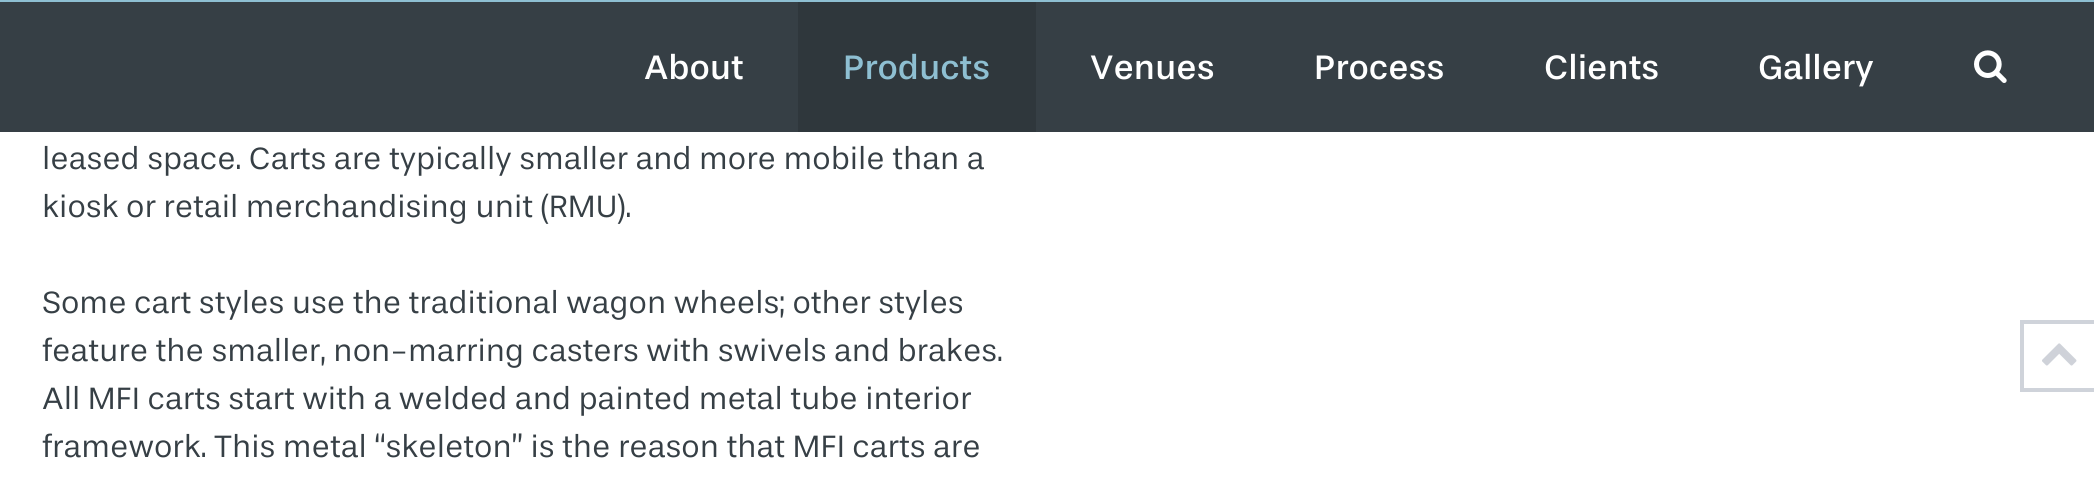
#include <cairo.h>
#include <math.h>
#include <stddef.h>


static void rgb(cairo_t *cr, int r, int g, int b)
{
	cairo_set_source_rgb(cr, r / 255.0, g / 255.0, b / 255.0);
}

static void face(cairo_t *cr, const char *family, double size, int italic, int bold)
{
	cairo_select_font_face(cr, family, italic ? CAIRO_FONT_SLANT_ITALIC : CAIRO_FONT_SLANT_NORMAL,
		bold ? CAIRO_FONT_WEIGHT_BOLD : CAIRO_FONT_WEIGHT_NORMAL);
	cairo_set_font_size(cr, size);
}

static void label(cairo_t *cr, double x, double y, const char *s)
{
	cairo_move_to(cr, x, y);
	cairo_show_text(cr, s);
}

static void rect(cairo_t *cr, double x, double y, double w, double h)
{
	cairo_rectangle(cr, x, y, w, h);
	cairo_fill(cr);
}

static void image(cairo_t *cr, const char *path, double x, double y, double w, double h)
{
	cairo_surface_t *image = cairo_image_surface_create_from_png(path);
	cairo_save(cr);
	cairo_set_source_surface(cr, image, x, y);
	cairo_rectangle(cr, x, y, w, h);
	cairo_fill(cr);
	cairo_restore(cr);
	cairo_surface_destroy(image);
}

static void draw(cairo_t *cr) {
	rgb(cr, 255, 255, 255);
	cairo_paint(cr);
	rgb(cr, 54, 63, 69);
	rect(cr, 0, 2, 2094, 130);
	rgb(cr, 142, 191, 210);
	rect(cr, 0, 0, 2094, 2);
	face(cr, "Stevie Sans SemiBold", 35, 0, 0);
	rgb(cr, 255, 255, 255);
	label(cr, 644, 79, "About");
	rgb(cr, 47, 55, 60);
	rect(cr, 798, 2, 238, 130);
	rgb(cr, 142, 191, 210);
	label(cr, 843, 79, "Products");
	rgb(cr, 255, 255, 255);
	label(cr, 1090, 79, "Venues");
	label(cr, 1314, 79, "Process");
	label(cr, 1544, 79, "Clients");
	label(cr, 1758, 79, "Gallery");
	image(cr, "image0.png", 1974, 50, 33, 33);
	face(cr, "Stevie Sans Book", 32, 0, 0);
	rgb(cr, 54, 63, 69);
	label(cr, 42, 169, "leased space. Carts are typically smaller and more mobile than a");
	label(cr, 42, 217, "kiosk or retail merchandising unit (RMU).");
	label(cr, 42, 313, "Some cart styles use the traditional wagon wheels; other styles");
	label(cr, 42, 361, "feature the smaller, non-marring casters with swivels and brakes.");
	label(cr, 42, 409, "All MFI carts start with a welded and painted metal tube interior");
	label(cr, 42, 457, "framework. This metal “skeleton” is the reason that MFI carts are");
	rgb(cr, 207, 211, 218);
	rect(cr, 2020, 320, 74, 4);
	rect(cr, 2020, 388, 74, 4);
	rect(cr, 2020, 320, 4, 72);
	image(cr, "image1.png", 2042, 343, 35, 23);
}

int main(void) {
	cairo_surface_t *surface = cairo_image_surface_create(CAIRO_FORMAT_RGB24, 2094, 492);
	cairo_t *cr = cairo_create(surface);
	cairo_font_options_t *options = cairo_font_options_create();
	cairo_font_options_set_hint_metrics(options, CAIRO_HINT_METRICS_OFF);
	cairo_font_options_set_hint_style(options, CAIRO_HINT_STYLE_NONE);
	cairo_set_font_options(cr, options);
	cairo_set_miter_limit(cr, 4);
	draw(cr);
	cairo_surface_write_to_png(surface, "render.png");
	cairo_font_options_destroy(options);
	cairo_destroy(cr);
	cairo_surface_destroy(surface);
	return 0;
}
